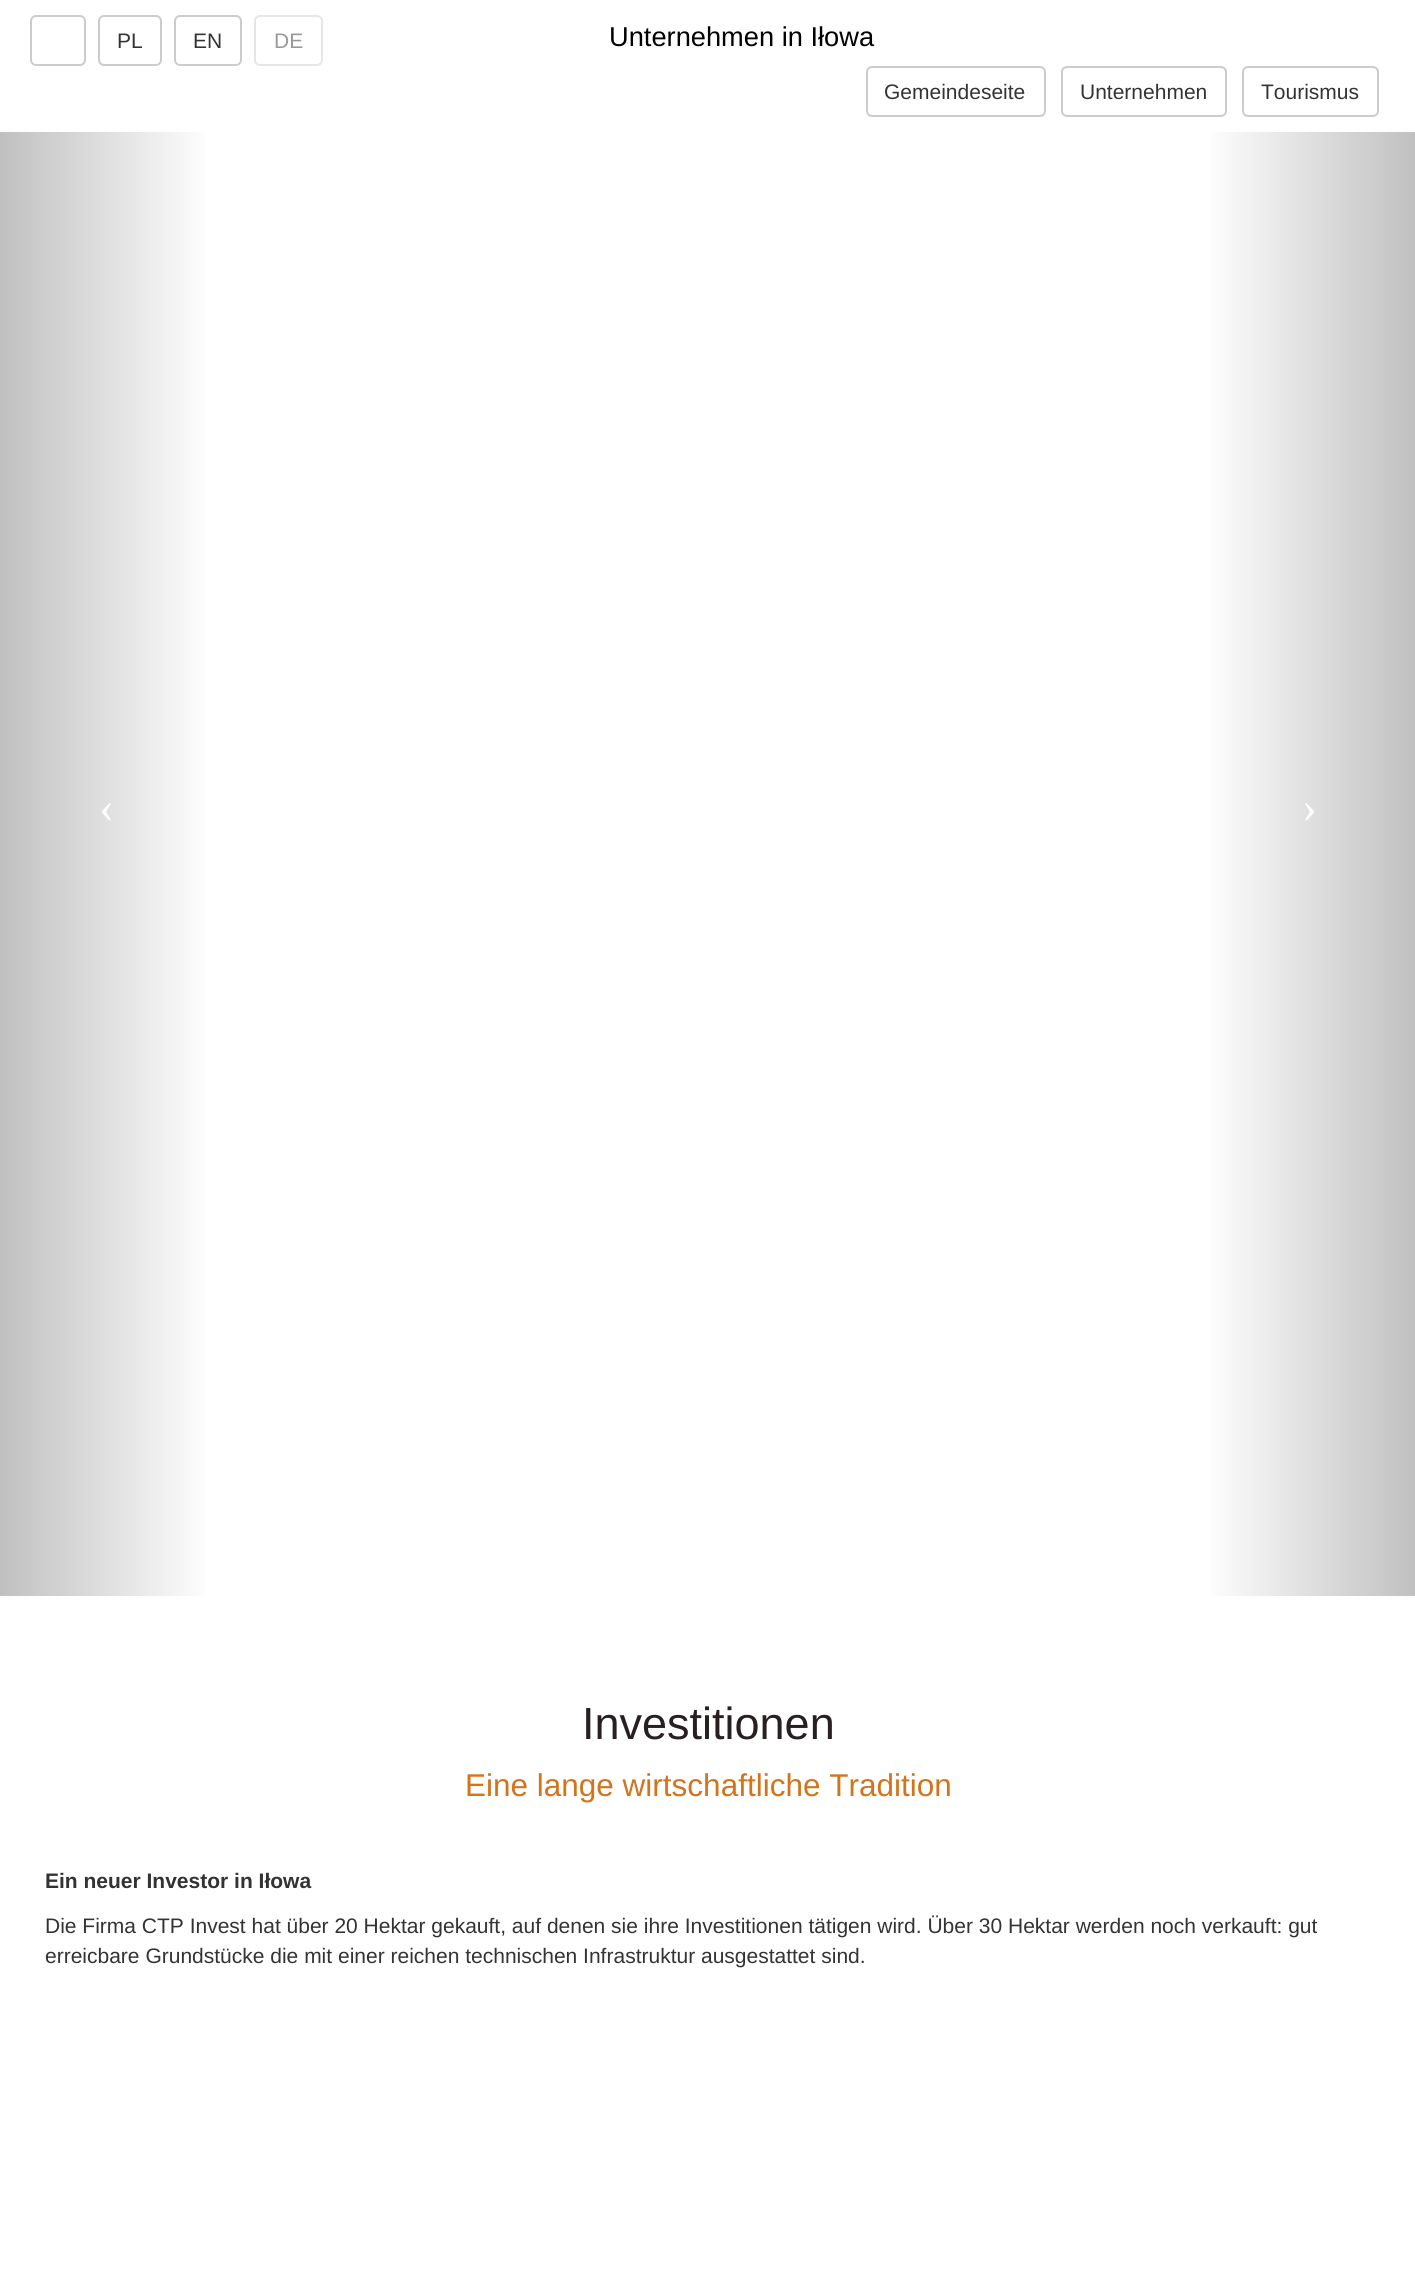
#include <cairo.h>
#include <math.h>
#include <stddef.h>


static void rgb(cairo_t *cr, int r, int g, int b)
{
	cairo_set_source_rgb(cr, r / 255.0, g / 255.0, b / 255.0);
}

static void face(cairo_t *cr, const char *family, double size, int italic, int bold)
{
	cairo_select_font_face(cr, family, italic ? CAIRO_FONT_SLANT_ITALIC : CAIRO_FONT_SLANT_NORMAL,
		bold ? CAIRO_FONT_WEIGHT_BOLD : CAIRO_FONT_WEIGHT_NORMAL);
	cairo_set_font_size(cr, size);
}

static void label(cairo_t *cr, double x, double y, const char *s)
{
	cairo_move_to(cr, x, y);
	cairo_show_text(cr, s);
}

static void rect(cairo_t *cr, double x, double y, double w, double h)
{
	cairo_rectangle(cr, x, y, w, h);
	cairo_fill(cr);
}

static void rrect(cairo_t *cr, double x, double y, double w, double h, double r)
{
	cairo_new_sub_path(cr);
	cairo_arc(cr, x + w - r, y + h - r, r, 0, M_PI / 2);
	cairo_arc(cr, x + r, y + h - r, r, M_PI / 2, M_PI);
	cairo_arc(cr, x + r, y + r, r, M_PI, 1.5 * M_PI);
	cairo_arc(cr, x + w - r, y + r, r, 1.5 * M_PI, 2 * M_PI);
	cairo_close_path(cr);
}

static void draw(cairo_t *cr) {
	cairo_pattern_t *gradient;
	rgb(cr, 255, 255, 255);
	cairo_paint(cr);
	rrect(cr, 31, 16, 54, 49, 5);
	rgb(cr, 204, 204, 204);
	cairo_stroke(cr);
	rrect(cr, 99, 16, 62, 49, 5);
	cairo_stroke(cr);
	face(cr, "Liberation Sans", 21, 0, 0);
	rgb(cr, 51, 51, 51);
	label(cr, 117, 48, "PL");
	rrect(cr, 175, 16, 66, 49, 5);
	rgb(cr, 204, 204, 204);
	cairo_stroke(cr);
	rgb(cr, 51, 51, 51);
	label(cr, 193, 48, "EN");
	rrect(cr, 255, 16, 67, 49, 5);
	rgb(cr, 230, 230, 230);
	cairo_stroke(cr);
	rgb(cr, 153, 153, 153);
	label(cr, 274, 48, "DE");
	face(cr, "Liberation Sans", 27.25, 0, 0);
	rgb(cr, 0, 0, 0);
	label(cr, 609, 46, "Unternehmen in Iłowa");
	rrect(cr, 867, 67, 178, 49, 5);
	rgb(cr, 204, 204, 204);
	cairo_stroke(cr);
	face(cr, "Liberation Sans", 21, 0, 0);
	rgb(cr, 51, 51, 51);
	label(cr, 884, 99, "Gemeindeseite");
	rrect(cr, 1062, 67, 164, 49, 5);
	rgb(cr, 204, 204, 204);
	cairo_stroke(cr);
	rgb(cr, 51, 51, 51);
	label(cr, 1080, 99, "Unternehmen");
	rrect(cr, 1243, 67, 135, 49, 5);
	rgb(cr, 204, 204, 204);
	cairo_stroke(cr);
	rgb(cr, 51, 51, 51);
	label(cr, 1261, 99, "Tourismus");
	gradient = cairo_pattern_create_linear(0, 798, 213, 798);
	cairo_pattern_add_color_stop_rgba(gradient, 0, 0.753, 0.753, 0.753, 1);
	cairo_pattern_add_color_stop_rgba(gradient, 1, 1, 1, 1, 1);
	cairo_set_source(cr, gradient);
	cairo_pattern_destroy(gradient);
	rect(cr, 0, 132, 205, 1464);
	face(cr, "Liberation Serif", 45, 0, 0);
	rgb(cr, 255, 255, 255);
	label(cr, 99, 822, "‹");
	gradient = cairo_pattern_create_linear(1203, 798, 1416, 798);
	cairo_pattern_add_color_stop_rgba(gradient, 0, 1, 1, 1, 1);
	cairo_pattern_add_color_stop_rgba(gradient, 1, 0.753, 0.753, 0.753, 1);
	cairo_set_source(cr, gradient);
	cairo_pattern_destroy(gradient);
	rect(cr, 1211, 132, 204, 1464);
	rgb(cr, 255, 255, 255);
	label(cr, 1302, 822, "›");
	face(cr, "Liberation Sans", 45, 0, 0);
	rgb(cr, 40, 32, 32);
	label(cr, 582, 1739, "Investitionen");
	face(cr, "Liberation Sans", 31.5, 0, 0);
	rgb(cr, 211, 116, 28);
	label(cr, 465, 1796, "Eine lange wirtschaftliche Tradition");
	face(cr, "Liberation Sans", 21, 0, 1);
	rgb(cr, 51, 51, 51);
	label(cr, 45, 1888, "Ein neuer Investor in Iłowa");
	face(cr, "Liberation Sans", 21, 0, 0);
	label(cr, 45, 1933, "Die Firma CTP Invest hat über 20 Hektar gekauft, auf denen sie ihre Investitionen tätigen wird. Über 30 Hektar werden noch verkauft: gut");
	label(cr, 45, 1963, "erreicbare Grundstücke die mit einer reichen technischen Infrastruktur ausgestattet sind.");
}

int main(void) {
	cairo_surface_t *surface = cairo_image_surface_create(CAIRO_FORMAT_RGB24, 1415, 2279);
	cairo_t *cr = cairo_create(surface);
	cairo_font_options_t *options = cairo_font_options_create();
	cairo_font_options_set_hint_metrics(options, CAIRO_HINT_METRICS_OFF);
	cairo_font_options_set_hint_style(options, CAIRO_HINT_STYLE_NONE);
	cairo_set_font_options(cr, options);
	cairo_set_miter_limit(cr, 4);
	draw(cr);
	cairo_surface_write_to_png(surface, "render.png");
	cairo_font_options_destroy(options);
	cairo_destroy(cr);
	cairo_surface_destroy(surface);
	return 0;
}
